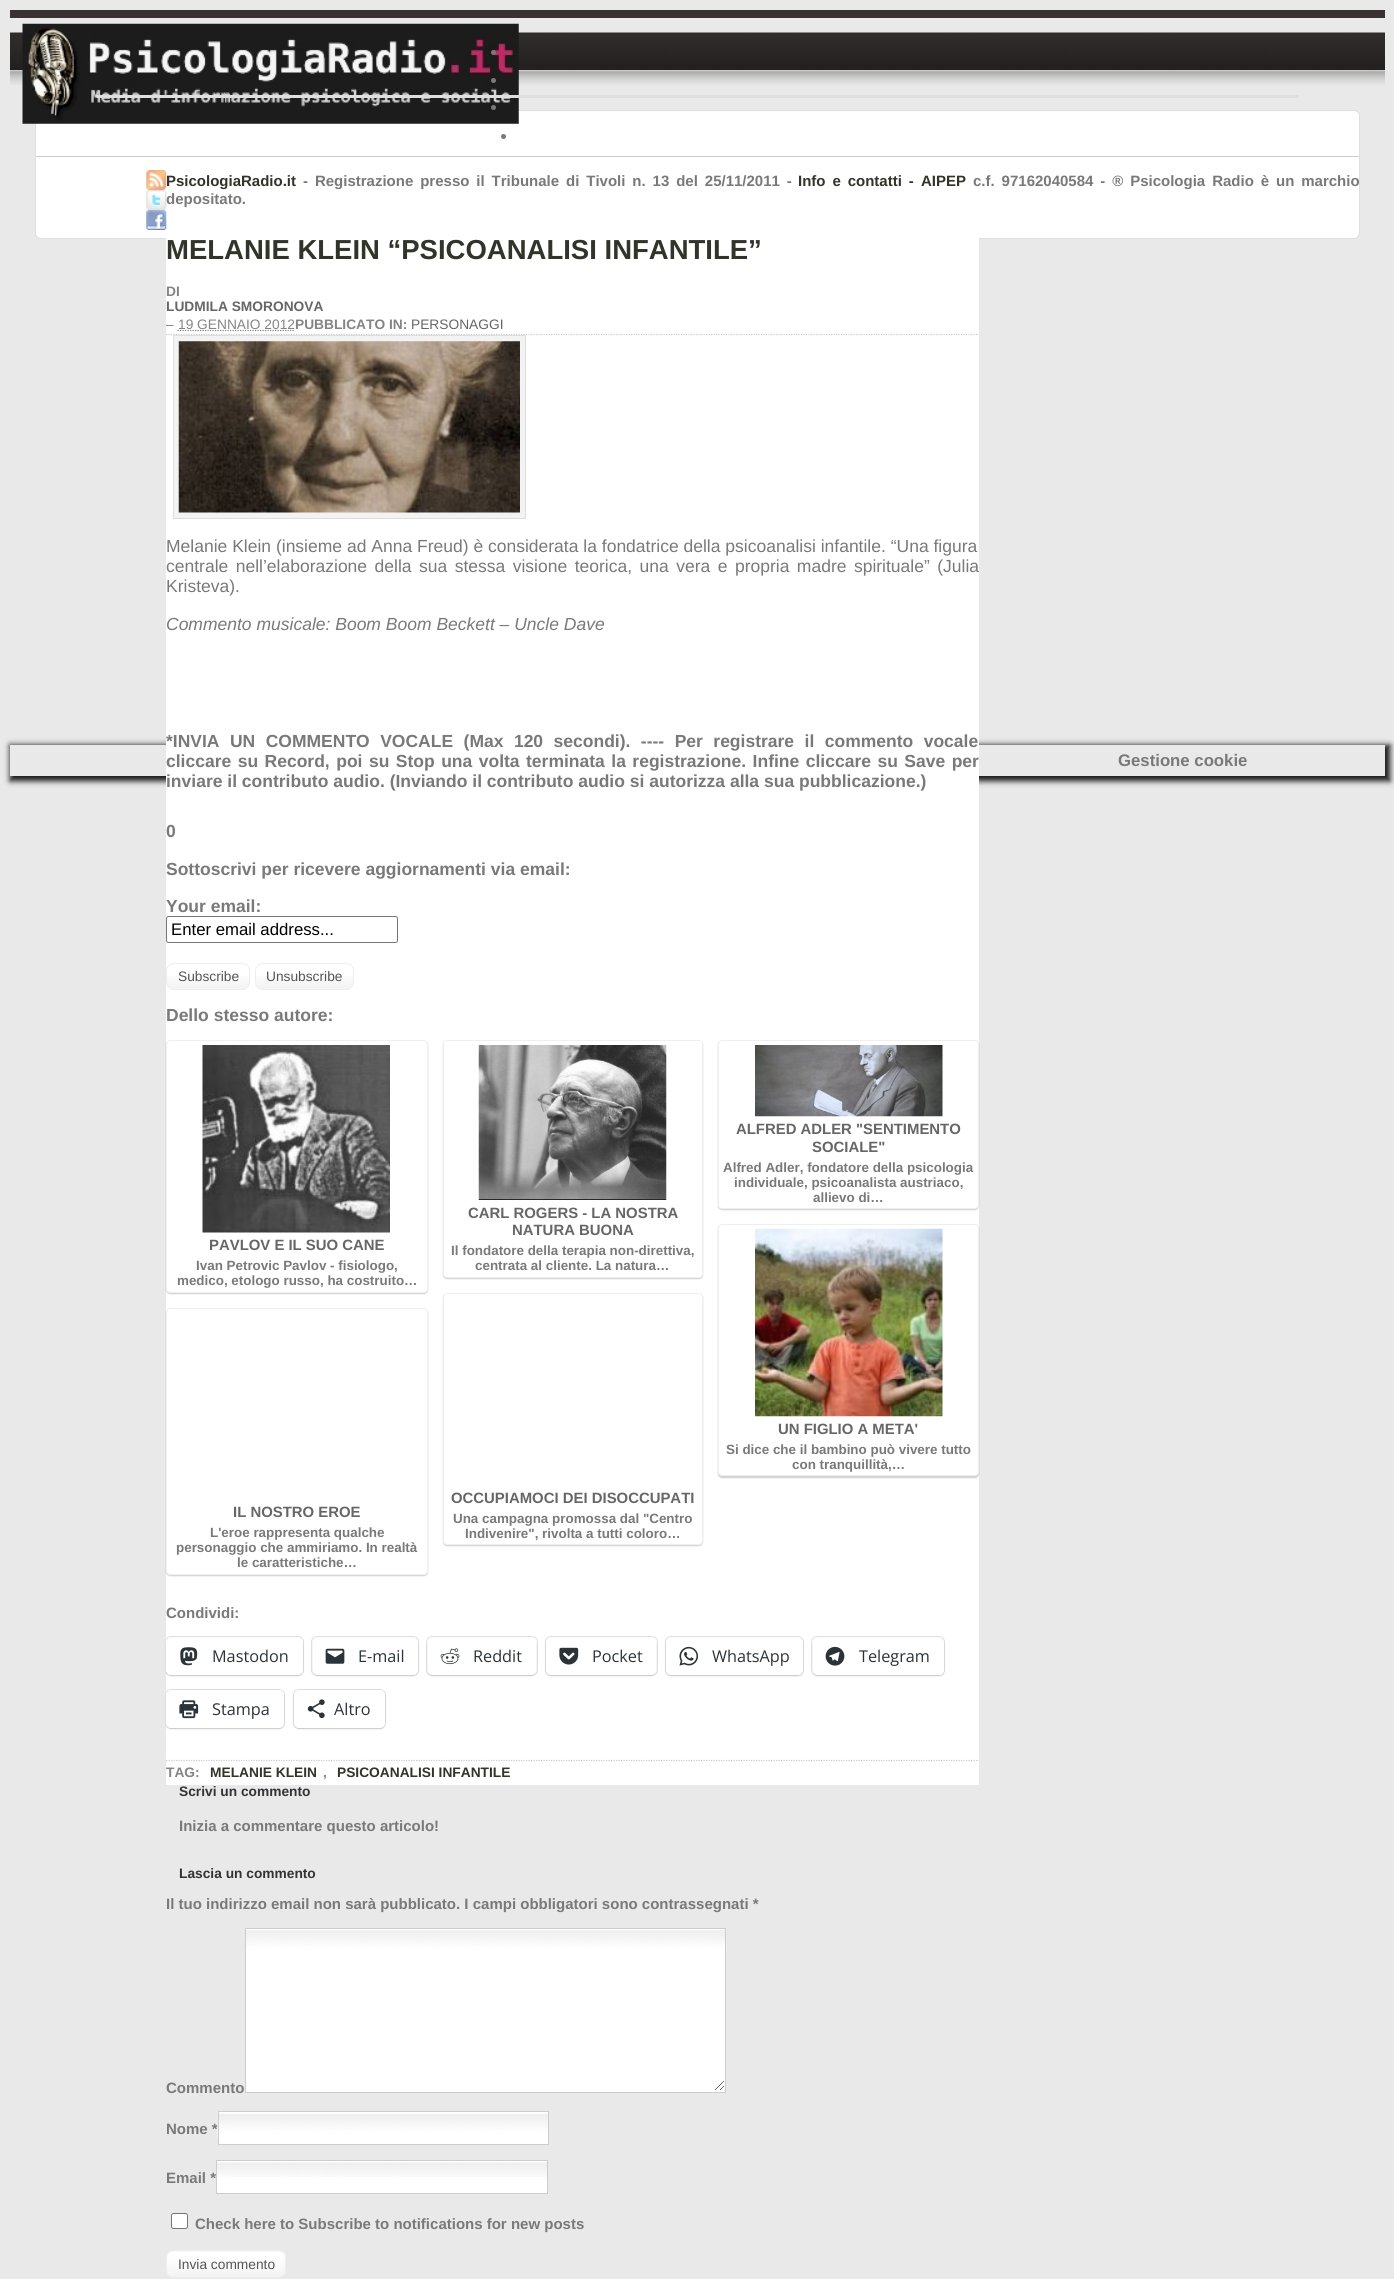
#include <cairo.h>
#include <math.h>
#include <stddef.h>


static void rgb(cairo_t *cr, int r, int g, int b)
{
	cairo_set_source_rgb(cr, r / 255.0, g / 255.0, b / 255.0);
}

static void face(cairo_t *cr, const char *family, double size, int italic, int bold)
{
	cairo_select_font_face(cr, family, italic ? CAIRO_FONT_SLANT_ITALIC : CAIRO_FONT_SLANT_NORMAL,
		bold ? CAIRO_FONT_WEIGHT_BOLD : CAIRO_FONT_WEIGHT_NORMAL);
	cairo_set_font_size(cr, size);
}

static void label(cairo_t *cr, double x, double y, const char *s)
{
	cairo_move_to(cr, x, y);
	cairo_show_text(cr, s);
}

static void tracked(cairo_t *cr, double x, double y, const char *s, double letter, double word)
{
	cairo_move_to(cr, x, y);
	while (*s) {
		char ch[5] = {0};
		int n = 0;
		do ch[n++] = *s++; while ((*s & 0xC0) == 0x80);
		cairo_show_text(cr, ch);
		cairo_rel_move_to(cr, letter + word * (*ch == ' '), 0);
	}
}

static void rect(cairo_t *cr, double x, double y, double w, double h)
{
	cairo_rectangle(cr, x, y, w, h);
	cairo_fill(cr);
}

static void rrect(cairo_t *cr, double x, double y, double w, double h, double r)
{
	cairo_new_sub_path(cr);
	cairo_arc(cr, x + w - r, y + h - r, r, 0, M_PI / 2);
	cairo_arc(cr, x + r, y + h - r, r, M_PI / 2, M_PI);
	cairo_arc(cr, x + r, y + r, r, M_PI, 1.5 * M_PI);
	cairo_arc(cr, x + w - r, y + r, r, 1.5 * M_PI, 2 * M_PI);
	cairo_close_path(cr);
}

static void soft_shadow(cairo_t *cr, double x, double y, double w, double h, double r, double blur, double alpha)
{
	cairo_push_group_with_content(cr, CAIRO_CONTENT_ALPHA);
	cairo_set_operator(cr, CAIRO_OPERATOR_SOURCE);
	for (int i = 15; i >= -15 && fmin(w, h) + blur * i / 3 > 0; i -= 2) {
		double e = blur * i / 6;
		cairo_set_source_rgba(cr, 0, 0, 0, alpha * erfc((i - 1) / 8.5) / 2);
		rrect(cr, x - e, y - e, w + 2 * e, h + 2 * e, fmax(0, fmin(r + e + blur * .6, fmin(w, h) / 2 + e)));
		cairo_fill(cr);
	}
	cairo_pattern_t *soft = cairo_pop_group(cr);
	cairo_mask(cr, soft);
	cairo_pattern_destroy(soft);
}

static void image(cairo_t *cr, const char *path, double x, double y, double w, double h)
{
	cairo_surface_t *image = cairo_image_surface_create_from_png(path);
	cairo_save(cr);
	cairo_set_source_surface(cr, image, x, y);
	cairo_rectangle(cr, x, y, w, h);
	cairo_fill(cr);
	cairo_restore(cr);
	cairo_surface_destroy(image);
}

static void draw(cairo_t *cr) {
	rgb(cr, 233, 233, 233);
	cairo_paint(cr);
	rgb(cr, 51, 51, 51);
	rect(cr, 10, 10, 1375, 1);
	rgb(cr, 56, 51, 50);
	rect(cr, 10, 11, 1375, 7);
	image(cr, "image1.png", 10, 32, 1375, 38);
	image(cr, "image5.png", 10, 70, 1375, 15);
	rgb(cr, 255, 255, 255);
	rrect(cr, 35.5, 110.5, 1324, 128, 5.5);
	cairo_fill_preserve(cr);
	rgb(cr, 222, 223, 223);
	cairo_set_line_width(cr, 1);
	cairo_stroke(cr);
	image(cr, "image0.png", 22, 23, 497, 101);
	rgb(cr, 121, 121, 121);
	cairo_arc(cr, 493.5, 52.5, 2.5, 0, 2 * M_PI);
	cairo_fill(cr);
	image(cr, "image2.png", 146, 170, 21, 20);
	cairo_arc(cr, 493.5, 80.5, 2.5, 0, 2 * M_PI);
	cairo_fill(cr);
	face(cr, "Liberation Sans", 15, 0, 1);
	label(cr, 166, 204, "depositato.");
	image(cr, "image3.png", 146, 190, 21, 20);
	cairo_arc(cr, 493.5, 107.5, 2.5, 0, 2 * M_PI);
	cairo_fill(cr);
	image(cr, "image4.png", 146, 210, 21, 20);
	rgb(cr, 204, 204, 204);
	rect(cr, 36, 156, 1323, 1);
	rgb(cr, 121, 121, 121);
	cairo_arc(cr, 503.5, 136.5, 2.5, 0, 2 * M_PI);
	cairo_fill(cr);
	rgb(cr, 49, 52, 40);
	label(cr, 166, 186, "PsicologiaRadio.it");
	rgb(cr, 121, 121, 121);
	tracked(cr, 303, 186, "- Registrazione presso il Tribunale di Tivoli n. 13 del 25/11/2011 -", 0, 2.75);
	rgb(cr, 49, 52, 40);
	tracked(cr, 798, 186, "Info e contatti -", 0, 2.75);
	label(cr, 921, 186, "AIPEP");
	rgb(cr, 121, 121, 121);
	tracked(cr, 973, 186, "c.f. 97162040584 - ® Psicologia Radio è un marchio", 0, 2.75);
	rgb(cr, 222, 223, 223);
	rrect(cr, 96, 95, 1203, 3, 1.5);
	cairo_fill(cr);
	cairo_save(cr);
	cairo_set_fill_rule(cr, CAIRO_FILL_RULE_EVEN_ODD);
	cairo_new_path(cr);
	cairo_move_to(cr, 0, 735);
	cairo_line_to(cr, 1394, 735);
	cairo_line_to(cr, 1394, 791);
	cairo_line_to(cr, 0, 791);
	cairo_close_path(cr);
	cairo_move_to(cr, 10, 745);
	cairo_line_to(cr, 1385, 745);
	cairo_line_to(cr, 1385, 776);
	cairo_line_to(cr, 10, 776);
	cairo_close_path(cr);
	cairo_clip(cr);
	rgb(cr, 22, 22, 22);
	soft_shadow(cr, 10, 745, 1380, 36, 0, 3, 1);
	cairo_restore(cr);
	rgb(cr, 255, 255, 255);
	rect(cr, 166, 229, 813, 1556);
	face(cr, "Liberation Sans", 27.5, 0, 1);
	rgb(cr, 49, 52, 40);
	label(cr, 166, 259, "MELANIE KLEIN “PSICOANALISI INFANTILE”");
	cairo_new_path(cr);
	cairo_move_to(cr, 166, 334.5);
	cairo_line_to(cr, 979, 334.5);
	rgb(cr, 204, 204, 204);
	cairo_set_line_width(cr, 1.2);
	cairo_set_dash(cr, (double[]){1.25, 1.25}, 2, 0);
	cairo_stroke(cr);
	face(cr, "Liberation Sans", 13.75, 0, 1);
	rgb(cr, 132, 132, 133);
	label(cr, 166, 296, "DI");
	rgb(cr, 102, 102, 102);
	label(cr, 166, 311, "LUDMILA SMORONOVA");
	face(cr, "Liberation Sans", 13.75, 0, 0);
	rgb(cr, 132, 132, 133);
	label(cr, 166, 329, "–");
	cairo_new_path(cr);
	cairo_move_to(cr, 177.5, 330.5);
	cairo_line_to(cr, 294.5, 330.5);
	cairo_stroke(cr);
	label(cr, 178, 329, "19 GENNAIO 2012");
	face(cr, "Liberation Sans", 13.75, 0, 1);
	label(cr, 295, 329, "PUBBLICATO IN:");
	face(cr, "Liberation Sans", 13.75, 0, 0);
	rgb(cr, 102, 102, 102);
	label(cr, 411, 329, "PERSONAGGI");
	rgb(cr, 243, 243, 243);
	cairo_rectangle(cr, 173.5, 335.5, 352, 183);
	cairo_fill_preserve(cr);
	rgb(cr, 221, 221, 221);
	cairo_set_line_width(cr, 1);
	cairo_set_dash(cr, NULL, 0, 0);
	cairo_stroke(cr);
	image(cr, "image6.png", 178, 341, 342, 172);
	face(cr, "Liberation Sans", 17.5, 0, 0);
	rgb(cr, 121, 121, 121);
	label(cr, 166, 552, "Melanie Klein (insieme ad Anna Freud) è considerata la fondatrice della psicoanalisi infantile. “Una figura");
	tracked(cr, 166, 572, "centrale nell’elaborazione della sua stessa visione teorica, una vera e propria madre spirituale” (Julia", 0, 2.6);
	label(cr, 166, 592, "Kristeva).");
	face(cr, "Liberation Sans", 17.5, 1, 0);
	label(cr, 166, 630, "Commento musicale: Boom Boom Beckett – Uncle Dave");
	face(cr, "Liberation Sans", 17.5, 0, 1);
	tracked(cr, 166, 747, "*INVIA UN COMMENTO VOCALE (Max 120 secondi). ---- Per registrare il commento vocale", 0, 5.6);
	tracked(cr, 166, 767, "cliccare su Record, poi su Stop una volta terminata la registrazione. Infine cliccare su Save per", 0, 1.6);
	label(cr, 166, 787, "inviare il contributo audio. (Inviando il contributo audio si autorizza alla sua pubblicazione.)");
	label(cr, 166, 837, "0");
	label(cr, 166, 875, "Sottoscrivi per ricevere aggiornamenti via email:");
	label(cr, 166, 912, "Your email:");
	rrect(cr, 166.5, 916.5, 231, 26, 2);
	rgb(cr, 118, 118, 118);
	cairo_stroke(cr);
	face(cr, "Liberation Sans", 16.75, 0, 0);
	rgb(cr, 0, 0, 0);
	label(cr, 171, 935, "Enter email address...");
	image(cr, "image7.png", 167, 976, 83, 14);
	rrect(cr, 166.5, 963.5, 83, 26, 7.5);
	rgb(cr, 238, 238, 238);
	cairo_stroke(cr);
	face(cr, "Liberation Sans", 13.75, 0, 0);
	rgb(cr, 84, 84, 84);
	label(cr, 178, 981, "Subscribe");
	image(cr, "image8.png", 255, 976, 99, 14);
	rrect(cr, 255.5, 963.5, 98, 26, 7.5);
	rgb(cr, 238, 238, 238);
	cairo_stroke(cr);
	rgb(cr, 84, 84, 84);
	label(cr, 266, 981, "Unsubscribe");
	face(cr, "Liberation Sans", 17.5, 0, 1);
	rgb(cr, 121, 121, 121);
	label(cr, 166, 1021, "Dello stesso autore:");
	rgb(cr, 0, 0, 0);
	soft_shadow(cr, 718, 1041, 261, 169, 4, 0.5, 0.18);
	rgb(cr, 255, 255, 255);
	rrect(cr, 718.5, 1040.5, 260, 168, 3.5);
	cairo_fill_preserve(cr);
	rgb(cr, 239, 239, 239);
	cairo_stroke(cr);
	image(cr, "image9.png", 755, 1045, 188, 72);
	face(cr, "Liberation Sans", 14.9, 0, 1);
	rgb(cr, 102, 102, 102);
	label(cr, 736, 1134, "ALFRED ADLER \"SENTIMENTO");
	label(cr, 812, 1152, "SOCIALE\"");
	face(cr, "Liberation Sans", 13.4, 0, 1);
	rgb(cr, 121, 121, 121);
	label(cr, 723, 1172, "Alfred Adler, fondatore della psicologia");
	label(cr, 734, 1187, "individuale, psicoanalista austriaco,");
	label(cr, 813, 1202, "allievo di…");
	rgb(cr, 0, 0, 0);
	soft_shadow(cr, 166, 1041, 262, 253, 4, 0.5, 0.18);
	rgb(cr, 255, 255, 255);
	rrect(cr, 166.5, 1040.5, 261, 252, 3.5);
	cairo_fill_preserve(cr);
	rgb(cr, 239, 239, 239);
	cairo_stroke(cr);
	image(cr, "image10.png", 202, 1045, 188, 188);
	face(cr, "Liberation Sans", 14.9, 0, 1);
	rgb(cr, 102, 102, 102);
	label(cr, 209, 1250, "PAVLOV E IL SUO CANE");
	face(cr, "Liberation Sans", 13.4, 0, 1);
	rgb(cr, 121, 121, 121);
	label(cr, 196, 1270, "Ivan Petrovic Pavlov - fisiologo,");
	label(cr, 177, 1285, "medico, etologo russo, ha costruito…");
	rgb(cr, 0, 0, 0);
	soft_shadow(cr, 443, 1041, 260, 238, 4, 0.5, 0.18);
	rgb(cr, 255, 255, 255);
	rrect(cr, 443.5, 1040.5, 259, 237, 3.5);
	cairo_fill_preserve(cr);
	rgb(cr, 239, 239, 239);
	cairo_stroke(cr);
	image(cr, "image11.png", 478, 1045, 189, 155);
	face(cr, "Liberation Sans", 14.9, 0, 1);
	rgb(cr, 102, 102, 102);
	label(cr, 468, 1218, "CARL ROGERS - LA NOSTRA");
	label(cr, 512, 1235, "NATURA BUONA");
	face(cr, "Liberation Sans", 13.4, 0, 1);
	rgb(cr, 121, 121, 121);
	label(cr, 451, 1255, "Il fondatore della terapia non-direttiva,");
	label(cr, 475, 1270, "centrata al cliente. La natura…");
	rgb(cr, 0, 0, 0);
	soft_shadow(cr, 718, 1225, 261, 253, 4, 0.5, 0.18);
	rgb(cr, 255, 255, 255);
	rrect(cr, 718.5, 1224.5, 260, 251, 3.5);
	cairo_fill_preserve(cr);
	rgb(cr, 239, 239, 239);
	cairo_stroke(cr);
	image(cr, "image12.png", 755, 1228, 188, 189);
	face(cr, "Liberation Sans", 14.9, 0, 1);
	rgb(cr, 102, 102, 102);
	label(cr, 778, 1434, "UN FIGLIO A META'");
	face(cr, "Liberation Sans", 13.4, 0, 1);
	rgb(cr, 121, 121, 121);
	label(cr, 726, 1454, "Si dice che il bambino può vivere tutto");
	label(cr, 792, 1469, "con tranquillità,…");
	rgb(cr, 0, 0, 0);
	soft_shadow(cr, 166, 1309, 262, 267, 4, 0.5, 0.18);
	rgb(cr, 255, 255, 255);
	rrect(cr, 166.5, 1308.5, 261, 266, 3.5);
	cairo_fill_preserve(cr);
	rgb(cr, 239, 239, 239);
	cairo_stroke(cr);
	face(cr, "Liberation Sans", 14.9, 0, 1);
	rgb(cr, 102, 102, 102);
	label(cr, 233, 1517, "IL NOSTRO EROE");
	face(cr, "Liberation Sans", 13.4, 0, 1);
	rgb(cr, 121, 121, 121);
	label(cr, 210, 1537, "L'eroe rappresenta qualche");
	label(cr, 176, 1552, "personaggio che ammiriamo. In realtà");
	label(cr, 237, 1567, "le caratteristiche…");
	rgb(cr, 0, 0, 0);
	soft_shadow(cr, 443, 1294, 260, 252, 4, 0.5, 0.18);
	rgb(cr, 255, 255, 255);
	rrect(cr, 443.5, 1293.5, 259, 251, 3.5);
	cairo_fill_preserve(cr);
	rgb(cr, 239, 239, 239);
	cairo_stroke(cr);
	face(cr, "Liberation Sans", 14.9, 0, 1);
	rgb(cr, 102, 102, 102);
	label(cr, 451, 1503, "OCCUPIAMOCI DEI DISOCCUPATI");
	face(cr, "Liberation Sans", 13.4, 0, 1);
	rgb(cr, 121, 121, 121);
	label(cr, 453, 1523, "Una campagna promossa dal \"Centro");
	label(cr, 465, 1538, "Indivenire\", rivolta a tutti coloro…");
	face(cr, "Liberation Sans", 15, 0, 1);
	label(cr, 166, 1618, "Condividi:");
	cairo_save(cr);
	cairo_rectangle(cr, 166, 210, 825, 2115);
	cairo_clip(cr);
	rrect(cr, 165.5, 1636.5, 138, 39, 5.5);
	rgb(cr, 224, 224, 224);
	cairo_stroke(cr);
	cairo_restore(cr);
	rgb(cr, 0, 0, 0);
	soft_shadow(cr, 166, 1639, 137, 37, 5, 1, 0.12);
	rgb(cr, 255, 255, 255);
	rrect(cr, 166, 1638, 137, 37, 5);
	cairo_fill(cr);
	image(cr, "image13.png", 180, 1647, 18, 19);
	face(cr, "Open Sans", 16.25, 0, 0);
	rgb(cr, 44, 51, 56);
	label(cr, 212, 1662, "Mastodon");
	rrect(cr, 311.5, 1636.5, 107, 39, 5.5);
	rgb(cr, 224, 224, 224);
	cairo_stroke(cr);
	rgb(cr, 0, 0, 0);
	soft_shadow(cr, 313, 1639, 105, 37, 5, 1, 0.12);
	rgb(cr, 255, 255, 255);
	rrect(cr, 313, 1638, 105, 37, 5);
	cairo_fill(cr);
	image(cr, "image14.png", 325, 1648, 20, 16);
	rgb(cr, 44, 51, 56);
	label(cr, 358, 1662, "E-mail");
	rrect(cr, 426.5, 1636.5, 111, 39, 5.5);
	rgb(cr, 224, 224, 224);
	cairo_stroke(cr);
	rgb(cr, 0, 0, 0);
	soft_shadow(cr, 428, 1639, 108, 37, 5, 1, 0.12);
	rgb(cr, 255, 255, 255);
	rrect(cr, 428, 1638, 108, 37, 5);
	cairo_fill(cr);
	image(cr, "image15.png", 440, 1648, 20, 17);
	rgb(cr, 44, 51, 56);
	label(cr, 473, 1662, "Reddit");
	rrect(cr, 545.5, 1636.5, 112, 39, 5.5);
	rgb(cr, 224, 224, 224);
	cairo_stroke(cr);
	rgb(cr, 0, 0, 0);
	soft_shadow(cr, 546, 1639, 110, 37, 5, 1, 0.12);
	rgb(cr, 255, 255, 255);
	rrect(cr, 546, 1638, 110, 37, 5);
	cairo_fill(cr);
	image(cr, "image16.png", 559, 1647, 20, 18);
	rgb(cr, 44, 51, 56);
	label(cr, 592, 1662, "Pocket");
	rrect(cr, 665.5, 1636.5, 138, 39, 5.5);
	rgb(cr, 224, 224, 224);
	cairo_stroke(cr);
	rgb(cr, 0, 0, 0);
	soft_shadow(cr, 666, 1639, 137, 37, 5, 1, 0.12);
	rgb(cr, 255, 255, 255);
	rrect(cr, 666, 1638, 137, 37, 5);
	cairo_fill(cr);
	image(cr, "image17.png", 679, 1646, 20, 20);
	rgb(cr, 44, 51, 56);
	label(cr, 712, 1662, "WhatsApp");
	rrect(cr, 811.5, 1636.5, 133, 39, 5.5);
	rgb(cr, 224, 224, 224);
	cairo_stroke(cr);
	rgb(cr, 0, 0, 0);
	soft_shadow(cr, 813, 1639, 131, 37, 5, 1, 0.12);
	rgb(cr, 255, 255, 255);
	rrect(cr, 813, 1638, 131, 37, 5);
	cairo_fill(cr);
	image(cr, "image18.png", 825, 1646, 20, 20);
	rgb(cr, 44, 51, 56);
	label(cr, 859, 1662, "Telegram");
	cairo_save(cr);
	cairo_rectangle(cr, 166, 210, 825, 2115);
	cairo_clip(cr);
	rrect(cr, 165.5, 1689.5, 119, 39, 5.5);
	rgb(cr, 224, 224, 224);
	cairo_stroke(cr);
	cairo_restore(cr);
	rgb(cr, 0, 0, 0);
	soft_shadow(cr, 166, 1691, 118, 38, 5, 1, 0.12);
	rgb(cr, 255, 255, 255);
	rrect(cr, 166, 1690, 118, 38, 5);
	cairo_fill(cr);
	image(cr, "image19.png", 179, 1700, 20, 19);
	rgb(cr, 44, 51, 56);
	label(cr, 212, 1715, "Stampa");
	rrect(cr, 293.5, 1689.5, 92, 39, 5.5);
	rgb(cr, 224, 224, 224);
	cairo_stroke(cr);
	rgb(cr, 0, 0, 0);
	soft_shadow(cr, 294, 1691, 91, 38, 5, 1, 0.12);
	rgb(cr, 255, 255, 255);
	rrect(cr, 294, 1690, 91, 38, 5);
	cairo_fill(cr);
	image(cr, "image20.png", 307, 1699, 18, 20);
	rgb(cr, 44, 51, 56);
	label(cr, 334, 1715, "Altro");
	cairo_new_path(cr);
	cairo_move_to(cr, 166, 1760.5);
	cairo_line_to(cr, 979, 1760.5);
	rgb(cr, 204, 204, 204);
	cairo_set_line_width(cr, 1.2);
	cairo_set_dash(cr, (double[]){1.25, 1.25}, 2, 0);
	cairo_stroke(cr);
	face(cr, "Liberation Sans", 13.75, 0, 1);
	rgb(cr, 132, 132, 133);
	label(cr, 166, 1777, "TAG:");
	rgb(cr, 49, 52, 40);
	label(cr, 210, 1777, "MELANIE KLEIN");
	rgb(cr, 132, 132, 133);
	label(cr, 323, 1777, ",");
	rgb(cr, 49, 52, 40);
	label(cr, 337, 1777, "PSICOANALISI INFANTILE");
	rgb(cr, 51, 51, 51);
	label(cr, 179, 1796, "Scrivi un commento");
	face(cr, "Liberation Sans", 15, 0, 1);
	rgb(cr, 121, 121, 121);
	label(cr, 179, 1831, "Inizia a commentare questo articolo!");
	face(cr, "Liberation Sans", 13.75, 0, 1);
	rgb(cr, 51, 51, 51);
	label(cr, 179, 1878, "Lascia un commento");
	face(cr, "Liberation Sans", 15, 0, 1);
	rgb(cr, 121, 121, 121);
	label(cr, 166, 1909, "Il tuo indirizzo email non sarà pubblicato. I campi obbligatori sono contrassegnati *");
	label(cr, 166, 2093, "Commento");
	rgb(cr, 255, 255, 255);
	rect(cr, 246, 1953, 479, 139);
	image(cr, "image21.png", 246, 1929, 481, 161);
	cairo_rectangle(cr, 245.5, 1928.5, 480, 164);
	rgb(cr, 204, 204, 204);
	cairo_set_line_width(cr, 1);
	cairo_set_dash(cr, NULL, 0, 0);
	cairo_stroke(cr);
	rgb(cr, 121, 121, 121);
	label(cr, 166, 2134, "Nome *");
	rgb(cr, 255, 255, 255);
	rect(cr, 219, 2112, 329, 32);
	image(cr, "image22.png", 217, 2112, 331, 26);
	cairo_rectangle(cr, 218.5, 2111.5, 330, 33);
	rgb(cr, 204, 204, 204);
	cairo_stroke(cr);
	rgb(cr, 121, 121, 121);
	label(cr, 166, 2183, "Email *");
	rgb(cr, 255, 255, 255);
	rect(cr, 217, 2161, 330, 32);
	image(cr, "image23.png", 217, 2162, 330, 15);
	cairo_rectangle(cr, 216.5, 2160.5, 331, 33);
	rgb(cr, 204, 204, 204);
	cairo_stroke(cr);
	rgb(cr, 255, 255, 255);
	rrect(cr, 171.5, 2213.5, 16, 15, 2);
	cairo_fill_preserve(cr);
	rgb(cr, 118, 118, 118);
	cairo_stroke(cr);
	rgb(cr, 121, 121, 121);
	label(cr, 195, 2229, "Check here to Subscribe to notifications for new posts");
	image(cr, "image24.png", 166, 2251, 120, 26);
	rrect(cr, 166.5, 2250.5, 119, 27, 7.5);
	rgb(cr, 238, 238, 238);
	cairo_stroke(cr);
	face(cr, "Liberation Sans", 13.75, 0, 0);
	rgb(cr, 84, 84, 84);
	label(cr, 178, 2269, "Invia commento");
	face(cr, "Liberation Sans", 16.75, 0, 1);
	rgb(cr, 121, 121, 121);
	label(cr, 1118, 766, "Gestione cookie");
}

int main(void) {
	cairo_surface_t *surface = cairo_image_surface_create(CAIRO_FORMAT_RGB24, 1394, 2279);
	cairo_t *cr = cairo_create(surface);
	cairo_font_options_t *options = cairo_font_options_create();
	cairo_font_options_set_hint_metrics(options, CAIRO_HINT_METRICS_OFF);
	cairo_font_options_set_hint_style(options, CAIRO_HINT_STYLE_NONE);
	cairo_set_font_options(cr, options);
	cairo_set_miter_limit(cr, 4);
	draw(cr);
	cairo_surface_write_to_png(surface, "render.png");
	cairo_font_options_destroy(options);
	cairo_destroy(cr);
	cairo_surface_destroy(surface);
	return 0;
}
